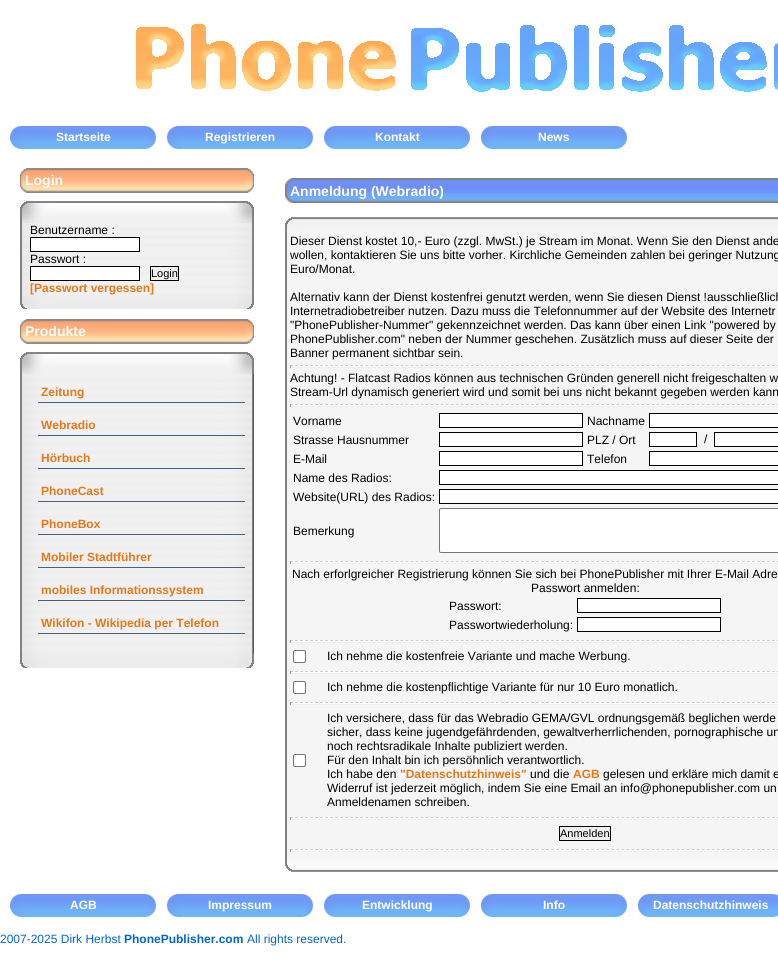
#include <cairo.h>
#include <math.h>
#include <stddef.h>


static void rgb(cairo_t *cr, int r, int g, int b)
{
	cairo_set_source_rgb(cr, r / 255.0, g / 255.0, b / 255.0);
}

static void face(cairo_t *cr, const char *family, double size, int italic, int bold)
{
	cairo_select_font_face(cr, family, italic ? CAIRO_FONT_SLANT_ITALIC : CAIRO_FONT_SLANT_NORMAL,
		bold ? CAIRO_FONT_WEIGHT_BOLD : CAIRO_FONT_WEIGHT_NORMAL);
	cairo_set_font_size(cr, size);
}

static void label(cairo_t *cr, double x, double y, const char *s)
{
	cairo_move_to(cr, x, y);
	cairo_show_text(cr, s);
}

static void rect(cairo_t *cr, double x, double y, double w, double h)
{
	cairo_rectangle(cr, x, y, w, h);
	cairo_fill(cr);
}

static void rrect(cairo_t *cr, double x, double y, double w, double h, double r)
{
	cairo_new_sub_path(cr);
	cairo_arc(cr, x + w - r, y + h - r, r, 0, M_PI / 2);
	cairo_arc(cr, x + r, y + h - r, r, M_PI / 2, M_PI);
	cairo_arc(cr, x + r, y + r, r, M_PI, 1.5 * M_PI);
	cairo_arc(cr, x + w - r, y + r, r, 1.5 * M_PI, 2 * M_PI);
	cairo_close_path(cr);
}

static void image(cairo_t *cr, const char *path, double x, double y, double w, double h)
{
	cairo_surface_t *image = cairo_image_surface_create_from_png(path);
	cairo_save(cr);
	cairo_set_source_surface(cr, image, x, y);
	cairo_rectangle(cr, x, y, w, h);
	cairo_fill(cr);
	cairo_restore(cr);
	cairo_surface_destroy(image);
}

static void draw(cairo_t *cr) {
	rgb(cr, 255, 255, 255);
	cairo_paint(cr);
	image(cr, "image0.png", 136, 24, 642, 68);
	image(cr, "image1.png", 10, 126, 146, 23);
	face(cr, "Liberation Sans", 12, 0, 1);
	rgb(cr, 255, 255, 255);
	label(cr, 56, 141, "Startseite");
	image(cr, "image1.png", 167, 126, 146, 23);
	label(cr, 205, 141, "Registrieren");
	image(cr, "image1.png", 324, 126, 146, 23);
	label(cr, 375, 141, "Kontakt");
	image(cr, "image1.png", 481, 126, 146, 23);
	label(cr, 538, 141, "News");
	image(cr, "image2.png", 20, 168, 234, 25);
	face(cr, "Liberation Sans", 14, 0, 1);
	label(cr, 25, 185, "Login");
	image(cr, "image3.png", 20, 201, 234, 22);
	image(cr, "image4.png", 20, 223, 234, 29);
	face(cr, "Liberation Sans", 12, 0, 0);
	rgb(cr, 0, 0, 0);
	label(cr, 30, 234, "Benutzername :");
	rgb(cr, 255, 255, 255);
	cairo_rectangle(cr, 30.5, 237.5, 109, 14);
	cairo_fill_preserve(cr);
	rgb(cr, 0, 0, 0);
	cairo_set_line_width(cr, 1);
	cairo_stroke(cr);
	image(cr, "image4.png", 20, 252, 234, 29);
	label(cr, 30, 263, "Passwort :");
	rgb(cr, 255, 255, 255);
	cairo_rectangle(cr, 30.5, 266.5, 109, 14);
	cairo_fill_preserve(cr);
	rgb(cr, 0, 0, 0);
	cairo_stroke(cr);
	cairo_rectangle(cr, 150.5, 266.5, 28, 14);
	cairo_stroke(cr);
	face(cr, "Liberation Sans", 11, 0, 0);
	label(cr, 151, 277, "Login");
	image(cr, "image5.png", 20, 281, 234, 14);
	face(cr, "Liberation Sans", 12, 0, 1);
	rgb(cr, 230, 120, 23);
	label(cr, 30, 292, "[Passwort vergessen]");
	image(cr, "image6.png", 20, 295, 234, 14);
	image(cr, "image2.png", 20, 319, 234, 25);
	face(cr, "Liberation Sans", 14, 0, 1);
	rgb(cr, 255, 255, 255);
	label(cr, 25, 336, "Produkte");
	image(cr, "image3.png", 20, 352, 234, 22);
	image(cr, "image7.png", 20, 374, 233, 280);
	rgb(cr, 74, 95, 125);
	rect(cr, 253, 374, 1, 280);
	rect(cr, 38, 402, 207, 1);
	face(cr, "Liberation Sans", 12, 0, 1);
	rgb(cr, 230, 120, 23);
	label(cr, 41, 396, "Zeitung");
	rgb(cr, 74, 95, 125);
	rect(cr, 38, 435, 207, 1);
	rgb(cr, 230, 120, 23);
	label(cr, 41, 429, "Webradio");
	rgb(cr, 74, 95, 125);
	rect(cr, 38, 468, 207, 1);
	rgb(cr, 230, 120, 23);
	label(cr, 41, 462, "Hörbuch");
	rgb(cr, 74, 95, 125);
	rect(cr, 38, 501, 207, 1);
	rgb(cr, 230, 120, 23);
	label(cr, 41, 495, "PhoneCast");
	rgb(cr, 74, 95, 125);
	rect(cr, 38, 534, 207, 1);
	rgb(cr, 230, 120, 23);
	label(cr, 41, 528, "PhoneBox");
	rgb(cr, 74, 95, 125);
	rect(cr, 38, 567, 207, 1);
	rgb(cr, 230, 120, 23);
	label(cr, 41, 561, "Mobiler Stadtführer");
	rgb(cr, 74, 95, 125);
	rect(cr, 38, 600, 207, 1);
	rgb(cr, 230, 120, 23);
	label(cr, 41, 594, "mobiles Informationssystem");
	rgb(cr, 74, 95, 125);
	rect(cr, 38, 633, 207, 1);
	rgb(cr, 230, 120, 23);
	label(cr, 41, 627, "Wikifon - Wikipedia per Telefon");
	image(cr, "image6.png", 20, 654, 234, 14);
	image(cr, "image8.png", 285, 178, 493, 25);
	face(cr, "Liberation Sans", 14, 0, 1);
	rgb(cr, 255, 255, 255);
	label(cr, 290, 196, "Anmeldung (Webradio)");
	image(cr, "image9.png", 285, 217, 493, 12);
	image(cr, "image10.png", 285, 229, 493, 631);
	face(cr, "Liberation Sans", 12, 0, 0);
	rgb(cr, 0, 0, 0);
	label(cr, 290, 245, "Dieser Dienst kostet 10,- Euro (zzgl. MwSt.) je Stream im Monat. Wenn Sie den Dienst ande");
	label(cr, 290, 259, "wollen, kontaktieren Sie uns bitte vorher. Kirchliche Gemeinden zahlen bei geringer Nutzung");
	label(cr, 290, 273, "Euro/Monat.");
	label(cr, 290, 301, "Alternativ kann der Dienst kostenfrei genutzt werden, wenn Sie diesen Dienst !ausschließlich");
	label(cr, 290, 315, "Internetradiobetreiber nutzen. Dazu muss die Telefonnummer auf der Website des Internetr");
	label(cr, 290, 329, "\"PhonePublisher-Nummer\" gekennzeichnet werden. Das kann über einen Link \"powered by");
	label(cr, 290, 343, "PhonePublisher.com\" neben der Nummer geschehen. Zusätzlich muss auf dieser Seite der");
	label(cr, 290, 357, "Banner permanent sichtbar sein.");
	rgb(cr, 255, 255, 255);
	rect(cr, 290, 365, 488, 2);
	cairo_new_path(cr);
	cairo_move_to(cr, 290, 365.5);
	cairo_line_to(cr, 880, 365.5);
	rgb(cr, 204, 204, 204);
	cairo_set_dash(cr, (double[]){3, 2.02}, 2, 0);
	cairo_stroke(cr);
	rgb(cr, 238, 238, 238);
	rect(cr, 290, 367, 488, 1);
	rgb(cr, 159, 159, 159);
	rect(cr, 290, 365, 1, 3);
	rgb(cr, 0, 0, 0);
	label(cr, 290, 382, "Achtung! - Flatcast Radios können aus technischen Gründen generell nicht freigeschalten w");
	label(cr, 290, 396, "Stream-Url dynamisch generiert wird und somit bei uns nicht bekannt gegeben werden kann");
	rgb(cr, 255, 255, 255);
	rect(cr, 290, 404, 488, 2);
	cairo_new_path(cr);
	cairo_move_to(cr, 290, 404.5);
	cairo_line_to(cr, 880, 404.5);
	rgb(cr, 204, 204, 204);
	cairo_stroke(cr);
	rgb(cr, 238, 238, 238);
	rect(cr, 290, 406, 488, 1);
	rgb(cr, 159, 159, 159);
	rect(cr, 290, 404, 1, 3);
	rgb(cr, 0, 0, 0);
	label(cr, 293, 425, "Vorname");
	rgb(cr, 255, 255, 255);
	cairo_rectangle(cr, 439.5, 413.5, 143, 14);
	cairo_fill_preserve(cr);
	rgb(cr, 0, 0, 0);
	cairo_set_dash(cr, NULL, 0, 0);
	cairo_stroke(cr);
	label(cr, 587, 425, "Nachname");
	rgb(cr, 255, 255, 255);
	cairo_rectangle(cr, 649.5, 413.5, 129, 14);
	cairo_fill_preserve(cr);
	rgb(cr, 0, 0, 0);
	cairo_stroke(cr);
	label(cr, 293, 444, "Strasse Hausnummer");
	rgb(cr, 255, 255, 255);
	cairo_rectangle(cr, 439.5, 432.5, 143, 14);
	cairo_fill_preserve(cr);
	rgb(cr, 0, 0, 0);
	cairo_stroke(cr);
	label(cr, 587, 444, "PLZ / Ort");
	rgb(cr, 255, 255, 255);
	cairo_rectangle(cr, 649.5, 432.5, 47, 14);
	cairo_fill_preserve(cr);
	rgb(cr, 0, 0, 0);
	cairo_stroke(cr);
	label(cr, 704, 443, "/");
	rgb(cr, 255, 255, 255);
	cairo_rectangle(cr, 714.5, 432.5, 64, 14);
	cairo_fill_preserve(cr);
	rgb(cr, 0, 0, 0);
	cairo_stroke(cr);
	label(cr, 293, 463, "E-Mail");
	rgb(cr, 255, 255, 255);
	cairo_rectangle(cr, 439.5, 451.5, 143, 14);
	cairo_fill_preserve(cr);
	rgb(cr, 0, 0, 0);
	cairo_stroke(cr);
	label(cr, 587, 463, "Telefon");
	rgb(cr, 255, 255, 255);
	cairo_rectangle(cr, 649.5, 451.5, 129, 14);
	cairo_fill_preserve(cr);
	rgb(cr, 0, 0, 0);
	cairo_stroke(cr);
	label(cr, 293, 482, "Name des Radios:");
	rgb(cr, 255, 255, 255);
	cairo_rectangle(cr, 439.5, 470.5, 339, 14);
	cairo_fill_preserve(cr);
	rgb(cr, 0, 0, 0);
	cairo_stroke(cr);
	label(cr, 293, 501, "Website(URL) des Radios:");
	rgb(cr, 255, 255, 255);
	cairo_rectangle(cr, 439.5, 489.5, 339, 14);
	cairo_fill_preserve(cr);
	rgb(cr, 0, 0, 0);
	cairo_stroke(cr);
	label(cr, 293, 535, "Bemerkung");
	rgb(cr, 255, 255, 255);
	rrect(cr, 439.5, 508.5, 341, 44, 1.5);
	cairo_fill_preserve(cr);
	rgb(cr, 118, 118, 118);
	cairo_stroke(cr);
	rgb(cr, 255, 255, 255);
	rect(cr, 290, 561, 488, 2);
	cairo_new_path(cr);
	cairo_move_to(cr, 290, 561.5);
	cairo_line_to(cr, 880, 561.5);
	rgb(cr, 204, 204, 204);
	cairo_set_dash(cr, (double[]){3, 2.02}, 2, 0);
	cairo_stroke(cr);
	rgb(cr, 238, 238, 238);
	rect(cr, 290, 563, 488, 1);
	rgb(cr, 159, 159, 159);
	rect(cr, 290, 561, 1, 3);
	rgb(cr, 0, 0, 0);
	label(cr, 292, 578, "Nach erforlgreicher Registrierung können Sie sich bei PhonePublisher mit Ihrer E-Mail Adre");
	label(cr, 531, 592, "Passwort anmelden:");
	label(cr, 449, 610, "Passwort:");
	rgb(cr, 255, 255, 255);
	cairo_rectangle(cr, 577.5, 598.5, 143, 14);
	cairo_fill_preserve(cr);
	rgb(cr, 0, 0, 0);
	cairo_set_dash(cr, NULL, 0, 0);
	cairo_stroke(cr);
	label(cr, 449, 629, "Passwortwiederholung:");
	rgb(cr, 255, 255, 255);
	cairo_rectangle(cr, 577.5, 617.5, 143, 14);
	cairo_fill_preserve(cr);
	rgb(cr, 0, 0, 0);
	cairo_stroke(cr);
	rgb(cr, 255, 255, 255);
	rect(cr, 290, 640, 488, 2);
	cairo_new_path(cr);
	cairo_move_to(cr, 290, 640.5);
	cairo_line_to(cr, 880, 640.5);
	rgb(cr, 204, 204, 204);
	cairo_set_dash(cr, (double[]){3, 2.02}, 2, 0);
	cairo_stroke(cr);
	rgb(cr, 238, 238, 238);
	rect(cr, 290, 642, 488, 1);
	rgb(cr, 159, 159, 159);
	rect(cr, 290, 640, 1, 3);
	rgb(cr, 255, 255, 255);
	rrect(cr, 293.5, 650.5, 12, 12, 1.5);
	cairo_fill_preserve(cr);
	rgb(cr, 118, 118, 118);
	cairo_set_dash(cr, NULL, 0, 0);
	cairo_stroke(cr);
	rgb(cr, 0, 0, 0);
	label(cr, 327, 660, "Ich nehme die kostenfreie Variante und mache Werbung.");
	rgb(cr, 255, 255, 255);
	rect(cr, 290, 671, 488, 2);
	cairo_new_path(cr);
	cairo_move_to(cr, 290, 671.5);
	cairo_line_to(cr, 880, 671.5);
	rgb(cr, 204, 204, 204);
	cairo_set_dash(cr, (double[]){3, 2.02}, 2, 0);
	cairo_stroke(cr);
	rgb(cr, 238, 238, 238);
	rect(cr, 290, 673, 488, 1);
	rgb(cr, 159, 159, 159);
	rect(cr, 290, 671, 1, 3);
	rgb(cr, 255, 255, 255);
	rrect(cr, 293.5, 681.5, 12, 12, 1.5);
	cairo_fill_preserve(cr);
	rgb(cr, 118, 118, 118);
	cairo_set_dash(cr, NULL, 0, 0);
	cairo_stroke(cr);
	rgb(cr, 0, 0, 0);
	label(cr, 327, 691, "Ich nehme die kostenpflichtige Variante für nur 10 Euro monatlich.");
	rgb(cr, 255, 255, 255);
	rect(cr, 290, 702, 488, 2);
	cairo_new_path(cr);
	cairo_move_to(cr, 290, 702.5);
	cairo_line_to(cr, 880, 702.5);
	rgb(cr, 204, 204, 204);
	cairo_set_dash(cr, (double[]){3, 2.02}, 2, 0);
	cairo_stroke(cr);
	rgb(cr, 238, 238, 238);
	rect(cr, 290, 704, 488, 1);
	rgb(cr, 159, 159, 159);
	rect(cr, 290, 702, 1, 3);
	rgb(cr, 255, 255, 255);
	rrect(cr, 293.5, 754.5, 12, 12, 1.5);
	cairo_fill_preserve(cr);
	rgb(cr, 118, 118, 118);
	cairo_set_dash(cr, NULL, 0, 0);
	cairo_stroke(cr);
	rgb(cr, 0, 0, 0);
	label(cr, 327, 722, "Ich versichere, dass für das Webradio GEMA/GVL ordnungsgemäß beglichen werde");
	label(cr, 327, 736, "sicher, dass keine jugendgefährdenden, gewaltverherrlichenden, pornographische un");
	label(cr, 327, 750, "noch rechtsradikale Inhalte publiziert werden.");
	label(cr, 327, 764, "Für den Inhalt bin ich persöhnlich verantwortlich.");
	label(cr, 327, 778, "Ich habe den");
	face(cr, "Liberation Sans", 12, 0, 1);
	rgb(cr, 230, 120, 23);
	label(cr, 400, 778, "\"Datenschutzhinweis\"");
	face(cr, "Liberation Sans", 12, 0, 0);
	rgb(cr, 0, 0, 0);
	label(cr, 530, 778, "und die");
	face(cr, "Liberation Sans", 12, 0, 1);
	rgb(cr, 230, 120, 23);
	label(cr, 573, 778, "AGB");
	face(cr, "Liberation Sans", 12, 0, 0);
	rgb(cr, 0, 0, 0);
	label(cr, 603, 778, "gelesen und erkläre mich damit e");
	label(cr, 327, 792, "Widerruf ist jederzeit möglich, indem Sie eine Email an info@phonepublisher.com un");
	label(cr, 327, 806, "Anmeldenamen schreiben.");
	rgb(cr, 255, 255, 255);
	rect(cr, 290, 817, 488, 2);
	cairo_new_path(cr);
	cairo_move_to(cr, 290, 817.5);
	cairo_line_to(cr, 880, 817.5);
	rgb(cr, 204, 204, 204);
	cairo_set_dash(cr, (double[]){3, 2.02}, 2, 0);
	cairo_stroke(cr);
	rgb(cr, 238, 238, 238);
	rect(cr, 290, 819, 488, 1);
	rgb(cr, 159, 159, 159);
	rect(cr, 290, 817, 1, 3);
	rgb(cr, 239, 239, 239);
	cairo_rectangle(cr, 559.5, 826.5, 51, 14);
	cairo_fill_preserve(cr);
	rgb(cr, 0, 0, 0);
	cairo_set_dash(cr, NULL, 0, 0);
	cairo_stroke(cr);
	face(cr, "Liberation Sans", 11, 0, 0);
	label(cr, 560, 837, "Anmelden");
	rgb(cr, 255, 255, 255);
	rect(cr, 290, 849, 488, 2);
	cairo_new_path(cr);
	cairo_move_to(cr, 290, 849.5);
	cairo_line_to(cr, 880, 849.5);
	rgb(cr, 204, 204, 204);
	cairo_set_dash(cr, (double[]){3, 2.02}, 2, 0);
	cairo_stroke(cr);
	rgb(cr, 238, 238, 238);
	rect(cr, 290, 851, 488, 1);
	rgb(cr, 159, 159, 159);
	rect(cr, 290, 849, 1, 3);
	image(cr, "image11.png", 285, 860, 493, 12);
	image(cr, "image1.png", 10, 894, 146, 23);
	face(cr, "Liberation Sans", 12, 0, 1);
	rgb(cr, 255, 255, 255);
	label(cr, 70, 909, "AGB");
	image(cr, "image1.png", 167, 894, 146, 23);
	label(cr, 208, 909, "Impressum");
	image(cr, "image1.png", 324, 894, 146, 23);
	label(cr, 362, 909, "Entwicklung");
	image(cr, "image1.png", 481, 894, 146, 23);
	label(cr, 543, 909, "Info");
	image(cr, "image12.png", 638, 894, 140, 23);
	label(cr, 653, 909, "Datenschutzhinweis");
	face(cr, "Liberation Sans", 12, 0, 0);
	rgb(cr, 0, 102, 204);
	label(cr, 0, 943, "2007-2025 Dirk Herbst");
	face(cr, "Liberation Sans", 12, 0, 1);
	label(cr, 124, 943, "PhonePublisher.com");
	face(cr, "Liberation Sans", 12, 0, 0);
	label(cr, 247, 943, "All rights reserved.");
}

int main(void) {
	cairo_surface_t *surface = cairo_image_surface_create(CAIRO_FORMAT_RGB24, 778, 973);
	cairo_t *cr = cairo_create(surface);
	cairo_font_options_t *options = cairo_font_options_create();
	cairo_font_options_set_hint_metrics(options, CAIRO_HINT_METRICS_OFF);
	cairo_font_options_set_hint_style(options, CAIRO_HINT_STYLE_NONE);
	cairo_set_font_options(cr, options);
	cairo_set_miter_limit(cr, 4);
	draw(cr);
	cairo_surface_write_to_png(surface, "render.png");
	cairo_font_options_destroy(options);
	cairo_destroy(cr);
	cairo_surface_destroy(surface);
	return 0;
}
